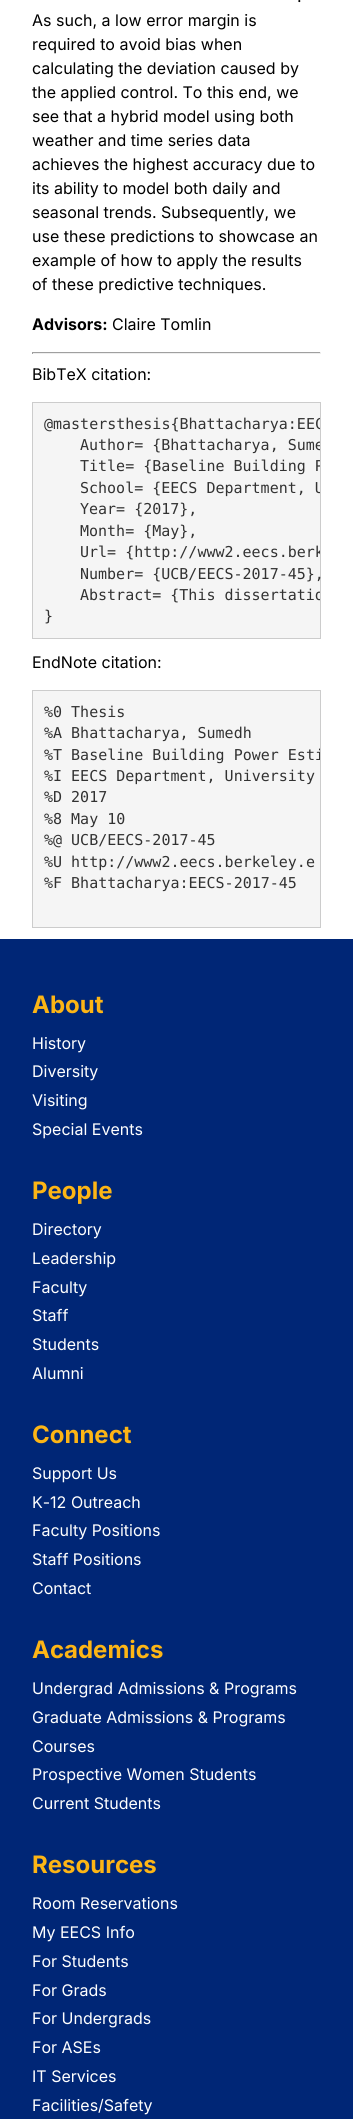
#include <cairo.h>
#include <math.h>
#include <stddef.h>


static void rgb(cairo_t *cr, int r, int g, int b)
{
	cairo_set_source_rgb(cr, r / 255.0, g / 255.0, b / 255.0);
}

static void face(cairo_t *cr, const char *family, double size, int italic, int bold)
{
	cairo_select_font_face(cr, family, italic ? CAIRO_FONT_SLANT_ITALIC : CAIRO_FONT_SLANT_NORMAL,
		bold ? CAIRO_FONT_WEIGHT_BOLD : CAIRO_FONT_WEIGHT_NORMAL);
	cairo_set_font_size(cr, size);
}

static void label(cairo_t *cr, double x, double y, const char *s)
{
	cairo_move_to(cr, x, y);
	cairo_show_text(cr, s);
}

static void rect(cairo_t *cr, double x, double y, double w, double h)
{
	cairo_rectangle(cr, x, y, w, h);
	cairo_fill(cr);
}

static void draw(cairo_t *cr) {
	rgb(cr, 255, 255, 255);
	cairo_paint(cr);
	face(cr, "Inter", 16, 0, 0);
	rgb(cr, 0, 0, 0);
	label(cr, 297, 2, ".");
	label(cr, 32, 26, "As such, a low error margin is");
	label(cr, 32, 50, "required to avoid bias when");
	label(cr, 32, 74, "calculating the deviation caused by");
	label(cr, 32, 98, "the applied control. To this end, we");
	label(cr, 32, 122, "see that a hybrid model using both");
	label(cr, 32, 146, "weather and time series data");
	label(cr, 32, 170, "achieves the highest accuracy due to");
	label(cr, 32, 194, "its ability to model both daily and");
	label(cr, 32, 218, "seasonal trends. Subsequently, we");
	label(cr, 32, 242, "use these predictions to showcase an");
	label(cr, 32, 266, "example of how to apply the results");
	label(cr, 32, 290, "of these predictive techniques.");
	face(cr, "Inter", 16, 0, 1);
	label(cr, 32, 330, "Advisors:");
	face(cr, "Inter", 16, 0, 0);
	label(cr, 112, 330, "Claire Tomlin");
	rgb(cr, 159, 159, 159);
	rect(cr, 32, 352, 289, 1);
	rgb(cr, 238, 238, 238);
	rect(cr, 320, 352, 1, 2);
	rect(cr, 32, 353, 289, 1);
	rgb(cr, 159, 159, 159);
	rect(cr, 32, 352, 1, 2);
	rgb(cr, 0, 0, 0);
	label(cr, 32, 380, "BibTeX citation:");
	rgb(cr, 245, 245, 245);
	cairo_rectangle(cr, 32.5, 402.5, 288, 236);
	cairo_fill_preserve(cr);
	rgb(cr, 204, 204, 204);
	cairo_set_line_width(cr, 1);
	cairo_stroke(cr);
	cairo_save(cr);
	cairo_rectangle(cr, 33, 403, 287, 235);
	cairo_clip(cr);
	face(cr, "DejaVu Sans Mono", 15, 0, 0);
	rgb(cr, 50, 50, 50);
	label(cr, 44, 429, "@mastersthesis{Bhattacharya:EEC");
	label(cr, 80, 450, "Author= {Bhattacharya, Sume");
	label(cr, 80, 471, "Title= {Baseline Building P");
	label(cr, 80, 493, "School= {EECS Department, U");
	cairo_restore(cr);
	face(cr, "DejaVu Sans Mono", 15, 0, 0);
	rgb(cr, 50, 50, 50);
	label(cr, 80, 514, "Year= {2017},");
	label(cr, 80, 536, "Month= {May},");
	cairo_save(cr);
	cairo_rectangle(cr, 33, 403, 287, 235);
	cairo_clip(cr);
	label(cr, 80, 557, "Url= {http://www2.eecs.berk");
	cairo_restore(cr);
	label(cr, 80, 579, "Number= {UCB/EECS-2017-45},");
	cairo_save(cr);
	cairo_rectangle(cr, 33, 403, 287, 235);
	cairo_clip(cr);
	label(cr, 80, 600, "Abstract= {This dissertatio");
	cairo_restore(cr);
	label(cr, 44, 621, "}");
	face(cr, "Inter", 16, 0, 0);
	rgb(cr, 0, 0, 0);
	label(cr, 32, 668, "EndNote citation:");
	rgb(cr, 245, 245, 245);
	cairo_rectangle(cr, 32.5, 690.5, 288, 237);
	cairo_fill_preserve(cr);
	rgb(cr, 204, 204, 204);
	cairo_stroke(cr);
	face(cr, "DejaVu Sans Mono", 15, 0, 0);
	rgb(cr, 50, 50, 50);
	label(cr, 44, 717, "%0 Thesis");
	label(cr, 44, 738, "%A Bhattacharya, Sumedh");
	cairo_save(cr);
	cairo_rectangle(cr, 33, 691, 287, 236);
	cairo_clip(cr);
	label(cr, 44, 760, "%T Baseline Building Power Esti");
	cairo_restore(cr);
	label(cr, 44, 781, "%I EECS Department, University");
	label(cr, 44, 802, "%D 2017");
	label(cr, 44, 824, "%8 May 10");
	label(cr, 44, 845, "%@ UCB/EECS-2017-45");
	label(cr, 44, 867, "%U http://www2.eecs.berkeley.e");
	label(cr, 44, 888, "%F Bhattacharya:EECS-2017-45");
	rgb(cr, 0, 38, 118);
	rect(cr, 0, 939, 353, 1180);
	face(cr, "Inter", 24, 0, 1);
	rgb(cr, 253, 181, 21);
	label(cr, 32, 1013, "About");
	face(cr, "Inter", 16, 0, 0);
	rgb(cr, 255, 255, 255);
	label(cr, 32, 1049, "History");
	label(cr, 32, 1077, "Diversity");
	label(cr, 32, 1106, "Visiting");
	label(cr, 32, 1135, "Special Events");
	face(cr, "Inter", 24, 0, 1);
	rgb(cr, 253, 181, 21);
	label(cr, 32, 1199, "People");
	face(cr, "Inter", 16, 0, 0);
	rgb(cr, 255, 255, 255);
	label(cr, 32, 1235, "Directory");
	label(cr, 32, 1264, "Leadership");
	label(cr, 32, 1293, "Faculty");
	label(cr, 32, 1321, "Staff");
	label(cr, 32, 1350, "Students");
	label(cr, 32, 1379, "Alumni");
	face(cr, "Inter", 24, 0, 1);
	rgb(cr, 253, 181, 21);
	label(cr, 32, 1443, "Connect");
	face(cr, "Inter", 16, 0, 0);
	rgb(cr, 255, 255, 255);
	label(cr, 32, 1479, "Support Us");
	label(cr, 32, 1508, "K-12 Outreach");
	label(cr, 32, 1536, "Faculty Positions");
	label(cr, 32, 1565, "Staff Positions");
	label(cr, 32, 1594, "Contact");
	face(cr, "Inter", 24, 0, 1);
	rgb(cr, 253, 181, 21);
	label(cr, 32, 1658, "Academics");
	face(cr, "Inter", 16, 0, 0);
	rgb(cr, 255, 255, 255);
	label(cr, 32, 1694, "Undergrad Admissions & Programs");
	label(cr, 32, 1723, "Graduate Admissions & Programs");
	label(cr, 32, 1752, "Courses");
	label(cr, 32, 1780, "Prospective Women Students");
	label(cr, 32, 1809, "Current Students");
	face(cr, "Inter", 24, 0, 1);
	rgb(cr, 253, 181, 21);
	label(cr, 32, 1873, "Resources");
	face(cr, "Inter", 16, 0, 0);
	rgb(cr, 255, 255, 255);
	label(cr, 32, 1909, "Room Reservations");
	label(cr, 32, 1938, "My EECS Info");
	label(cr, 32, 1967, "For Students");
	label(cr, 32, 1996, "For Grads");
	label(cr, 32, 2024, "For Undergrads");
	label(cr, 32, 2053, "For ASEs");
	label(cr, 32, 2082, "IT Services");
	label(cr, 32, 2111, "Facilities/Safety");
}

int main(void) {
	cairo_surface_t *surface = cairo_image_surface_create(CAIRO_FORMAT_RGB24, 353, 2119);
	cairo_t *cr = cairo_create(surface);
	cairo_font_options_t *options = cairo_font_options_create();
	cairo_font_options_set_hint_metrics(options, CAIRO_HINT_METRICS_OFF);
	cairo_font_options_set_hint_style(options, CAIRO_HINT_STYLE_NONE);
	cairo_set_font_options(cr, options);
	cairo_set_miter_limit(cr, 4);
	draw(cr);
	cairo_surface_write_to_png(surface, "render.png");
	cairo_font_options_destroy(options);
	cairo_destroy(cr);
	cairo_surface_destroy(surface);
	return 0;
}
